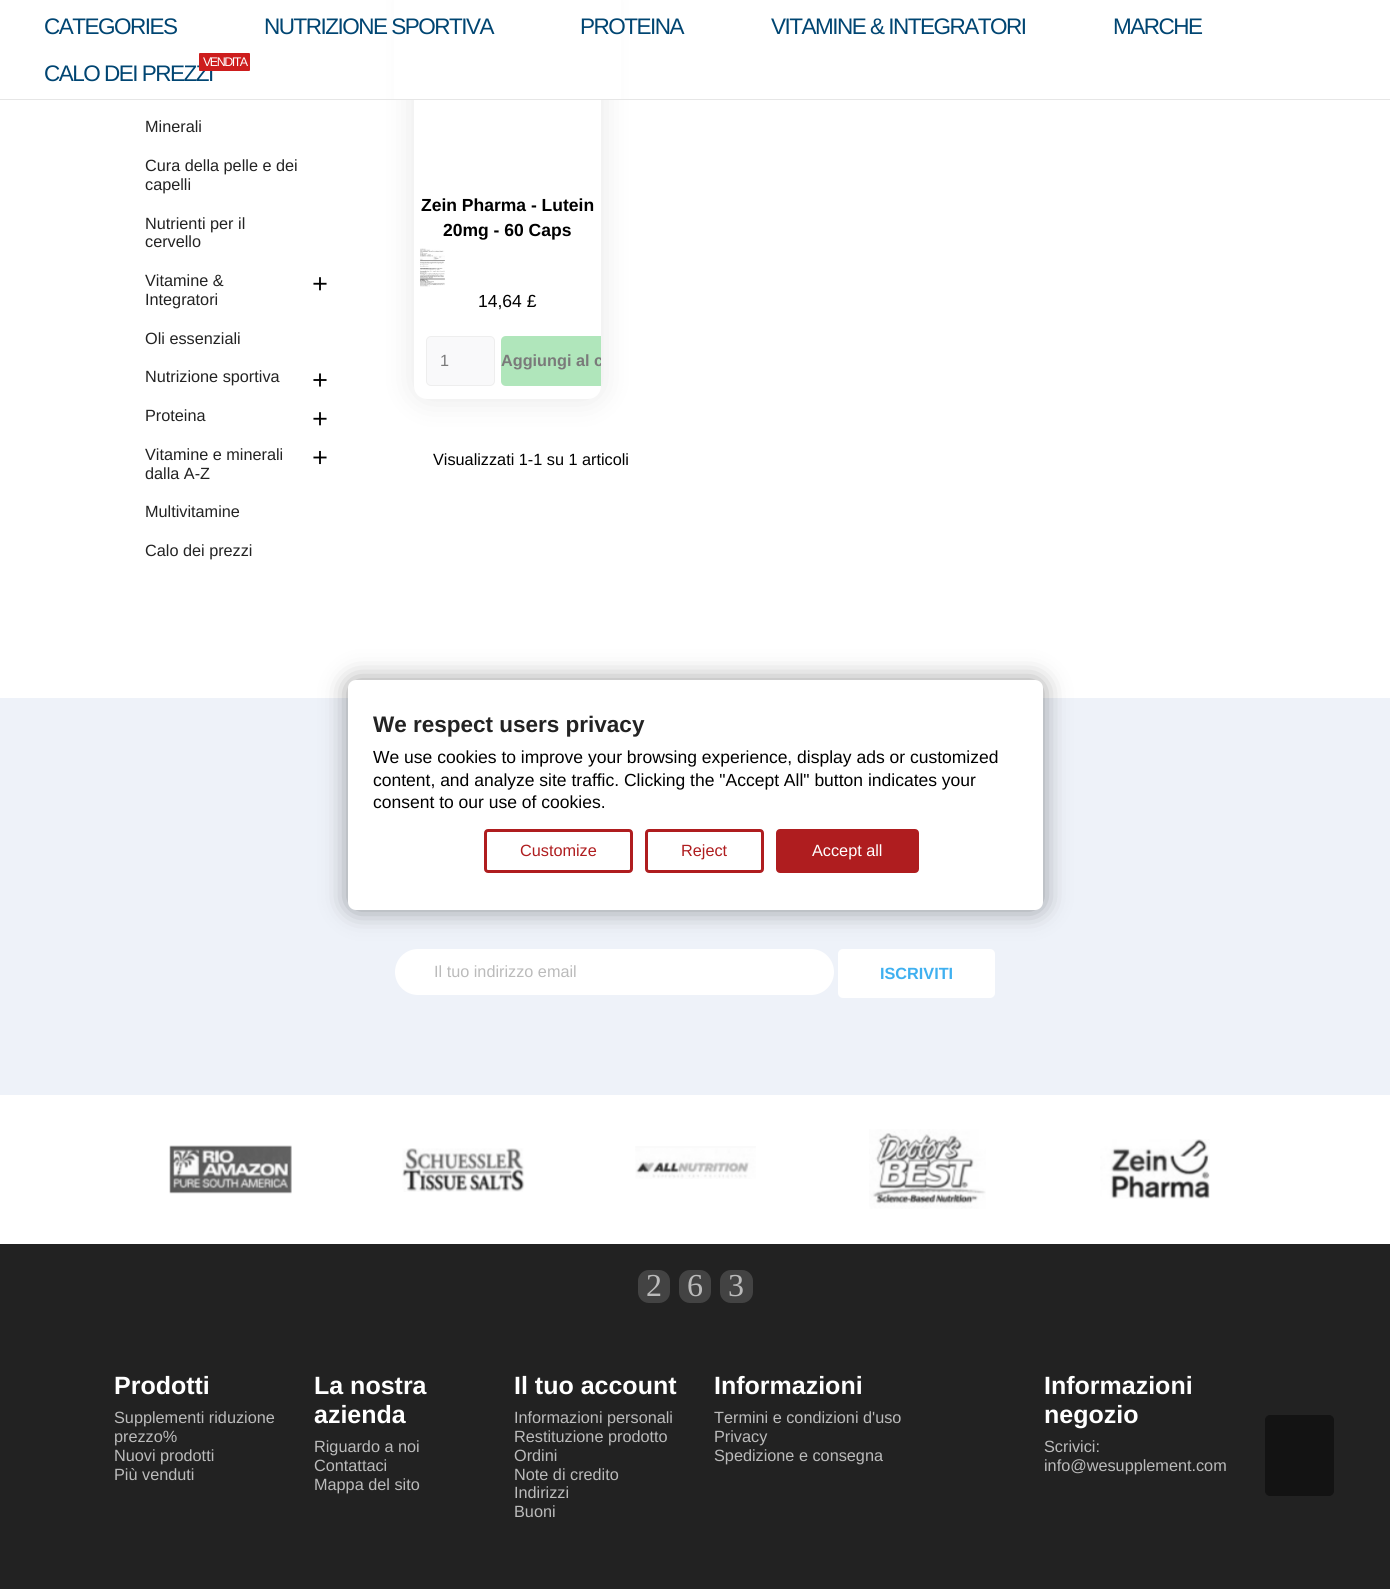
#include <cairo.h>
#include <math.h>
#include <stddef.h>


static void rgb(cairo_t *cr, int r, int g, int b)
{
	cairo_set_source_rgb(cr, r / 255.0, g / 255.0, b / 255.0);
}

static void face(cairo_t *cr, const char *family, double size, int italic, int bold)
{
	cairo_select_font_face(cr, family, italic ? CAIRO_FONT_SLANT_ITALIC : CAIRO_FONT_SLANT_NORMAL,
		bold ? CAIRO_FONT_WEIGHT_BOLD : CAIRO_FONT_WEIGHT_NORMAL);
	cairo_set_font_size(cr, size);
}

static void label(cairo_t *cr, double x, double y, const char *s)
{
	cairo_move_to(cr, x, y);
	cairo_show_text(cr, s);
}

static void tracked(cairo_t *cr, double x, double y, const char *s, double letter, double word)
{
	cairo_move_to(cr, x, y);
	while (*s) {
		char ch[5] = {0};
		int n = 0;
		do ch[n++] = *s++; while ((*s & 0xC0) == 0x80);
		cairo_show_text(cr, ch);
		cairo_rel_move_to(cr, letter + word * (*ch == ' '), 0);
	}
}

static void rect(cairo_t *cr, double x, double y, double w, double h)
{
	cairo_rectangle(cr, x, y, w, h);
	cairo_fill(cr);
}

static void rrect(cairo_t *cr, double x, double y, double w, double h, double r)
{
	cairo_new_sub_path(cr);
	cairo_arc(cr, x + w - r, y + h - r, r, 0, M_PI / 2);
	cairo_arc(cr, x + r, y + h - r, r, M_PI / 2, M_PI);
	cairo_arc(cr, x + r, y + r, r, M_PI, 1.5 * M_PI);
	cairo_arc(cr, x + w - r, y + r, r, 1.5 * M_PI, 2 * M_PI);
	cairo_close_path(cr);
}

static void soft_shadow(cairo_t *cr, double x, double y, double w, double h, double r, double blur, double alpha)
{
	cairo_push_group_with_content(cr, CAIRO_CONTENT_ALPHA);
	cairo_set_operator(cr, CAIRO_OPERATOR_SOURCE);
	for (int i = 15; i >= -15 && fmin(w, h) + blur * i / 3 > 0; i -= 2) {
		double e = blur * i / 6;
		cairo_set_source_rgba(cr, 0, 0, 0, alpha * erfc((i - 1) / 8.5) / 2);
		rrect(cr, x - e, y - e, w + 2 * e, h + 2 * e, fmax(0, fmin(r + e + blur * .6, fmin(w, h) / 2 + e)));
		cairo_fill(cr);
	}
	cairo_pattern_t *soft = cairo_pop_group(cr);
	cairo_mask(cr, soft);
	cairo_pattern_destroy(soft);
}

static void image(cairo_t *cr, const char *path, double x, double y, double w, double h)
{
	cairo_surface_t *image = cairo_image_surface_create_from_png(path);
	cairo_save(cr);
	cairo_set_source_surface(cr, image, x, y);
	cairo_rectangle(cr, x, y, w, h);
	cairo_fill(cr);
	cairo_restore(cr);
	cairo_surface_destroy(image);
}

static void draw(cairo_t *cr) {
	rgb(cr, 255, 255, 255);
	cairo_paint(cr);
	rgb(cr, 0, 0, 0);
	soft_shadow(cr, 414, -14, 187, 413, 13, 15.5, 0.1);
	rgb(cr, 255, 255, 255);
	rrect(cr, 414, -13, 187, 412, 13);
	cairo_fill(cr);
	rect(cr, 394, 0, 227, 99);
	rgb(cr, 230, 230, 230);
	rect(cr, 0, 99, 1390, 1);
	face(cr, "Arimo", 22.5, 0, 0);
	rgb(cr, 0, 69, 114);
	tracked(cr, 44, 34, "CATEGORIES", -1.5, 0);
	tracked(cr, 264, 34, "NUTRIZIONE SPORTIVA", -1.5, 0);
	tracked(cr, 580, 34, "PROTEINA", -1.5, 0);
	tracked(cr, 771, 34, "VITAMINE & INTEGRATORI", -1.5, 0);
	tracked(cr, 1113, 34, "MARCHE", -1.5, 0);
	tracked(cr, 44, 81, "CALO DEI PREZZI", -1.5, 0);
	rgb(cr, 205, 29, 29);
	rrect(cr, 199, 53, 51, 18, 1);
	cairo_fill(cr);
	face(cr, "Arimo", 12.5, 0, 0);
	rgb(cr, 255, 255, 255);
	tracked(cr, 203, 66, "VENDITA", -1.5, 0);
	face(cr, "Arimo", 16.25, 0, 0);
	rgb(cr, 35, 35, 35);
	label(cr, 145, 132, "Minerali");
	label(cr, 145, 171, "Cura della pelle e dei");
	label(cr, 145, 190, "capelli");
	label(cr, 145, 229, "Nutrienti per il");
	label(cr, 145, 247, "cervello");
	label(cr, 145, 286, "Vitamine &");
	label(cr, 145, 305, "Integratori");
	image(cr, "image0.png", 313, 277, 14, 14);
	label(cr, 145, 344, "Oli essenziali");
	label(cr, 145, 382, "Nutrizione sportiva");
	image(cr, "image1.png", 313, 373, 14, 14);
	label(cr, 145, 421, "Proteina");
	image(cr, "image0.png", 313, 412, 14, 14);
	label(cr, 145, 460, "Vitamine e minerali");
	label(cr, 145, 479, "dalla A-Z");
	image(cr, "image2.png", 313, 450, 14, 15);
	label(cr, 145, 517, "Multivitamine");
	label(cr, 145, 556, "Calo dei prezzi");
	face(cr, "Arimo", 17.5, 0, 1);
	rgb(cr, 0, 0, 0);
	label(cr, 421, 211, "Zein Pharma - Lutein");
	label(cr, 443, 236, "20mg - 60 Caps");
	image(cr, "image3.png", 420, 248, 25, 39);
	face(cr, "Arimo", 17.5, 0, 0);
	label(cr, 478, 307, "14,64 £");
	rgb(cr, 249, 249, 250);
	rrect(cr, 426.5, 336.5, 68, 49, 4.5);
	cairo_fill_preserve(cr);
	rgb(cr, 238, 238, 238);
	cairo_set_line_width(cr, 1);
	cairo_stroke(cr);
	face(cr, "Arimo", 16.25, 0, 0);
	rgb(cr, 122, 122, 122);
	label(cr, 440, 366, "1");
	rgb(cr, 176, 230, 187);
	cairo_new_path(cr);
	cairo_move_to(cr, 506, 336);
	cairo_line_to(cr, 601, 336);
	cairo_line_to(cr, 601, 386);
	cairo_line_to(cr, 506, 386);
	cairo_curve_to(cr, 503, 386, 501, 384, 501, 381);
	cairo_line_to(cr, 501, 341);
	cairo_curve_to(cr, 501, 338, 503, 336, 506, 336);
	cairo_close_path(cr);
	cairo_fill(cr);
	cairo_save(cr);
	rrect(cr, 414, -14, 187, 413, 13);
	cairo_clip(cr);
	face(cr, "Arimo", 16.25, 0, 1);
	rgb(cr, 122, 122, 122);
	label(cr, 501, 366, "Aggiungi al c");
	cairo_restore(cr);
	rgb(cr, 0, 0, 0);
	label(cr, 433, 465, "Visualizzati 1-1 su 1 articoli");
	rgb(cr, 238, 242, 249);
	rect(cr, 0, 698, 1390, 397);
	rgb(cr, 255, 255, 255);
	rrect(cr, 395, 949, 439, 46, 23);
	cairo_fill(cr);
	rgb(cr, 187, 187, 187);
	label(cr, 434, 977, "Il tuo indirizzo email");
	rgb(cr, 255, 255, 255);
	rrect(cr, 838, 949, 157, 49, 5);
	cairo_fill(cr);
	face(cr, "Arimo", 16.25, 0, 1);
	rgb(cr, 63, 176, 240);
	label(cr, 880, 979, "ISCRIVITI");
	image(cr, "image4.png", 169, 1145, 123, 49);
	image(cr, "image5.png", 402, 1148, 123, 44);
	image(cr, "image6.png", 635, 1146, 121, 33);
	image(cr, "image7.png", 869, 1129, 117, 80);
	image(cr, "image8.png", 1100, 1139, 110, 60);
	rgb(cr, 34, 34, 34);
	rect(cr, 0, 1244, 1390, 345);
	rgb(cr, 67, 67, 67);
	rrect(cr, 638, 1270, 32, 33, 11);
	cairo_fill(cr);
	face(cr, "Liberation Serif", 32, 0, 0);
	rgb(cr, 187, 187, 187);
	label(cr, 646, 1296, "2");
	rgb(cr, 67, 67, 67);
	rrect(cr, 679, 1270, 32, 33, 11);
	cairo_fill(cr);
	rgb(cr, 187, 187, 187);
	label(cr, 687, 1296, "6");
	rgb(cr, 67, 67, 67);
	rrect(cr, 720, 1270, 33, 33, 11);
	cairo_fill(cr);
	rgb(cr, 187, 187, 187);
	label(cr, 728, 1296, "3");
	face(cr, "Arimo", 25, 0, 1);
	rgb(cr, 255, 255, 255);
	label(cr, 114, 1394, "Prodotti");
	face(cr, "Arimo", 16.25, 0, 0);
	rgb(cr, 187, 187, 187);
	label(cr, 114, 1423, "Supplementi riduzione");
	label(cr, 114, 1442, "prezzo%");
	label(cr, 114, 1461, "Nuovi prodotti");
	label(cr, 114, 1480, "Più venduti");
	face(cr, "Arimo", 25, 0, 1);
	rgb(cr, 255, 255, 255);
	label(cr, 314, 1394, "La nostra");
	label(cr, 314, 1423, "azienda");
	face(cr, "Arimo", 16.25, 0, 0);
	rgb(cr, 187, 187, 187);
	label(cr, 314, 1452, "Riguardo a noi");
	label(cr, 314, 1471, "Contattaci");
	label(cr, 314, 1490, "Mappa del sito");
	face(cr, "Arimo", 25, 0, 1);
	rgb(cr, 255, 255, 255);
	label(cr, 514, 1394, "Il tuo account");
	face(cr, "Arimo", 16.25, 0, 0);
	rgb(cr, 187, 187, 187);
	label(cr, 514, 1423, "Informazioni personali");
	label(cr, 514, 1442, "Restituzione prodotto");
	label(cr, 514, 1461, "Ordini");
	label(cr, 514, 1480, "Note di credito");
	label(cr, 514, 1498, "Indirizzi");
	label(cr, 514, 1517, "Buoni");
	face(cr, "Arimo", 25, 0, 1);
	rgb(cr, 255, 255, 255);
	label(cr, 714, 1394, "Informazioni");
	face(cr, "Arimo", 16.25, 0, 0);
	rgb(cr, 187, 187, 187);
	label(cr, 714, 1423, "Termini e condizioni d'uso");
	label(cr, 714, 1442, "Privacy");
	label(cr, 714, 1461, "Spedizione e consegna");
	face(cr, "Arimo", 25, 0, 1);
	rgb(cr, 255, 255, 255);
	label(cr, 1044, 1394, "Informazioni");
	label(cr, 1044, 1423, "negozio");
	face(cr, "Arimo", 16.25, 0, 0);
	rgb(cr, 187, 187, 187);
	label(cr, 1044, 1452, "Scrivici:");
	label(cr, 1044, 1471, "info@wesupplement.com");
	rgb(cr, 19, 19, 19);
	rrect(cr, 1265.5, 1415.5, 68, 80, 4.5);
	cairo_fill_preserve(cr);
	cairo_stroke(cr);
	rgb(cr, 0, 0, 0);
	soft_shadow(cr, 348, 680, 695, 230, 8, 12.5, 0.4);
	rgb(cr, 255, 255, 255);
	rrect(cr, 348, 680, 695, 230, 8);
	cairo_fill(cr);
	face(cr, "Arimo", 22.5, 0, 1);
	rgb(cr, 35, 35, 35);
	label(cr, 373, 732, "We respect users privacy");
	face(cr, "Arimo", 17.5, 0, 0);
	rgb(cr, 0, 0, 0);
	label(cr, 373, 763, "We use cookies to improve your browsing experience, display ads or customized");
	label(cr, 373, 786, "content, and analyze site traffic. Clicking the \"Accept All\" button indicates your");
	label(cr, 373, 808, "consent to our use of cookies.");
	rrect(cr, 485.5, 830.5, 146, 41, 2.5);
	rgb(cr, 175, 29, 31);
	cairo_set_line_width(cr, 3);
	cairo_stroke(cr);
	face(cr, "Arimo", 16.25, 0, 0);
	label(cr, 520, 856, "Customize");
	rrect(cr, 646.5, 830.5, 116, 41, 2.5);
	cairo_stroke(cr);
	label(cr, 681, 856, "Reject");
	rrect(cr, 777.5, 830.5, 140, 41, 2.5);
	cairo_fill_preserve(cr);
	cairo_stroke(cr);
	rgb(cr, 255, 255, 255);
	label(cr, 812, 856, "Accept all");
}

int main(void) {
	cairo_surface_t *surface = cairo_image_surface_create(CAIRO_FORMAT_RGB24, 1390, 1589);
	cairo_t *cr = cairo_create(surface);
	cairo_font_options_t *options = cairo_font_options_create();
	cairo_font_options_set_hint_metrics(options, CAIRO_HINT_METRICS_OFF);
	cairo_font_options_set_hint_style(options, CAIRO_HINT_STYLE_NONE);
	cairo_set_font_options(cr, options);
	cairo_set_miter_limit(cr, 4);
	draw(cr);
	cairo_surface_write_to_png(surface, "render.png");
	cairo_font_options_destroy(options);
	cairo_destroy(cr);
	cairo_surface_destroy(surface);
	return 0;
}
